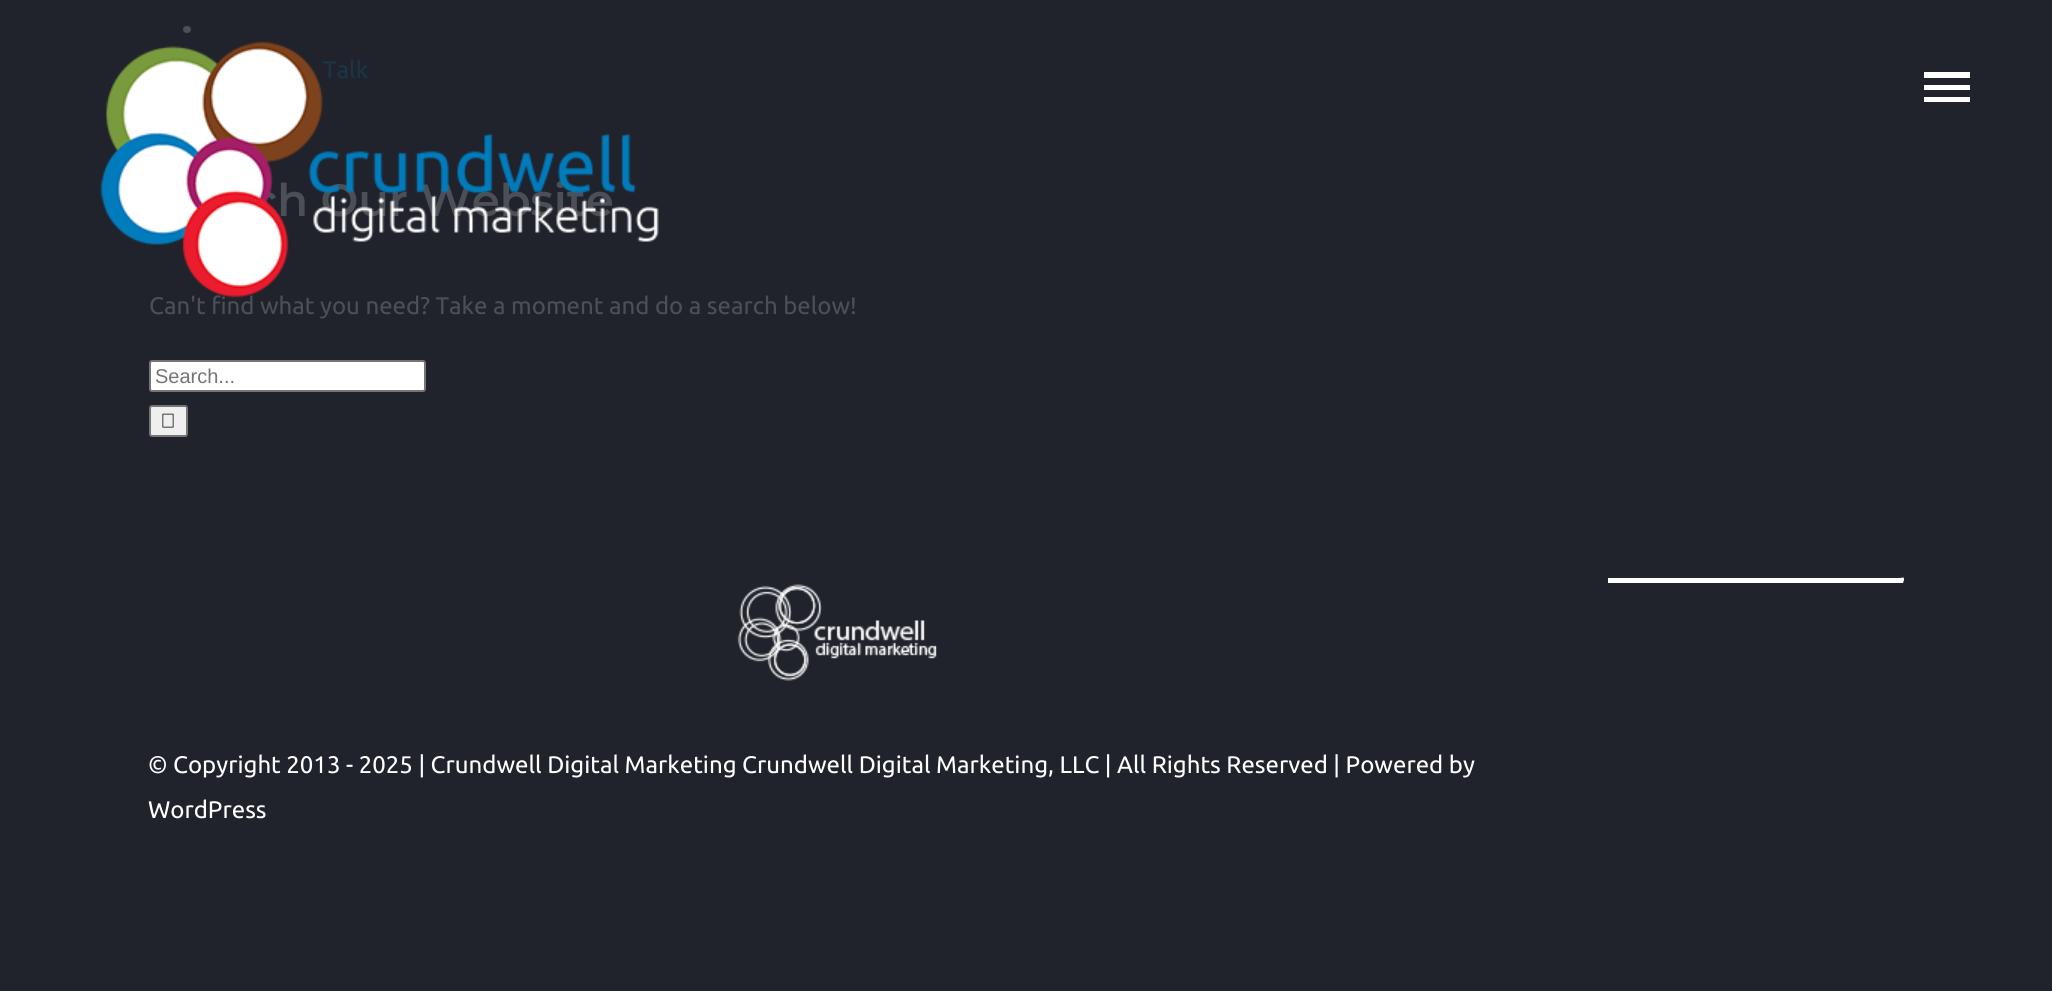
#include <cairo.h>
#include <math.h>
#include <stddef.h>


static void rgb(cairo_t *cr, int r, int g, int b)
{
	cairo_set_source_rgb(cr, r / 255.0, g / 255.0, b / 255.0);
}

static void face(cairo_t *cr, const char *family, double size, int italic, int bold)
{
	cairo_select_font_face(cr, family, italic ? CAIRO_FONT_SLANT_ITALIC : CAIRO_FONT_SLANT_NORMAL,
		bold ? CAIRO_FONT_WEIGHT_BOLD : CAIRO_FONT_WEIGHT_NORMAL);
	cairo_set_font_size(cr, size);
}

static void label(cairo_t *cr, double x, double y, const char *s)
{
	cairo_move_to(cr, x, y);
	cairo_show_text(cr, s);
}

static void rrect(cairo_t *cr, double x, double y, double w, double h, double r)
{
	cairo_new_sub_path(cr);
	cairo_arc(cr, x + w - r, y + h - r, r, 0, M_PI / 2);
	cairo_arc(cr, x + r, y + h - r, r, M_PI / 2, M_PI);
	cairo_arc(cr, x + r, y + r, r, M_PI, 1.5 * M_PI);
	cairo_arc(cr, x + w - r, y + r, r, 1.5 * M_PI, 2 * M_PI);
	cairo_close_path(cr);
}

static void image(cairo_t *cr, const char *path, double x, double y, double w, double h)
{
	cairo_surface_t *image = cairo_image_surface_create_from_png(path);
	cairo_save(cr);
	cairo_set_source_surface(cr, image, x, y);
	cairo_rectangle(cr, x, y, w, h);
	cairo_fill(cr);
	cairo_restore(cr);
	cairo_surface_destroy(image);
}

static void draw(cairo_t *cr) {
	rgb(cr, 32, 35, 44);
	cairo_paint(cr);
	face(cr, "Ubuntu", 24, 0, 0);
	rgb(cr, 26, 53, 72);
	label(cr, 323, 78, "Talk");
	face(cr, "Montserrat SemiBold", 45, 0, 0);
	rgb(cr, 77, 79, 86);
	label(cr, 251, 216, "ch Our Website");
	face(cr, "Ubuntu", 24, 0, 0);
	label(cr, 149, 314, "Can't find what you need? Take a moment and do a search below!");
	image(cr, "image0.png", 100, 41, 559, 257);
	rgb(cr, 255, 255, 255);
	cairo_new_path(cr);
	cairo_move_to(cr, 1924, 72);
	cairo_line_to(cr, 1970, 72);
	cairo_line_to(cr, 1970, 78);
	cairo_line_to(cr, 1924, 78);
	cairo_close_path(cr);
	cairo_move_to(cr, 1924, 90);
	cairo_line_to(cr, 1924, 85);
	cairo_line_to(cr, 1970, 85);
	cairo_line_to(cr, 1970, 90);
	cairo_close_path(cr);
	cairo_move_to(cr, 1924, 102);
	cairo_line_to(cr, 1924, 97);
	cairo_line_to(cr, 1970, 97);
	cairo_line_to(cr, 1970, 102);
	cairo_close_path(cr);
	cairo_fill(cr);
	rgb(cr, 77, 79, 86);
	rrect(cr, 183, 26, 8, 7, 3.5);
	cairo_fill(cr);
	rgb(cr, 255, 255, 255);
	rrect(cr, 150, 361, 275, 30, 2);
	cairo_fill_preserve(cr);
	rgb(cr, 118, 118, 118);
	cairo_stroke(cr);
	face(cr, "Liberation Sans", 20, 0, 0);
	rgb(cr, 117, 117, 117);
	label(cr, 155, 383, "Search...");
	rgb(cr, 239, 239, 239);
	rrect(cr, 150, 406, 37, 30, 2);
	cairo_fill_preserve(cr);
	rgb(cr, 118, 118, 118);
	cairo_stroke(cr);
	image(cr, "image1.png", 162, 413, 12, 15);
	rgb(cr, 255, 255, 255);
	cairo_new_path(cr);
	cairo_move_to(cr, 1614, 578);
	cairo_line_to(cr, 1899, 578);
	cairo_curve_to(cr, 1903, 578, 1904, 576, 1904, 580);
	cairo_line_to(cr, 1903, 583);
	cairo_line_to(cr, 1608, 583);
	cairo_line_to(cr, 1608, 578);
	cairo_close_path(cr);
	cairo_fill(cr);
	image(cr, "image2.png", 737, 584, 200, 97);
	face(cr, "Ubuntu", 24, 0, 0);
	label(cr, 148, 773, "© Copyright 2013 - 2025 | Crundwell Digital Marketing Crundwell Digital Marketing, LLC | All Rights Reserved | Powered by");
	label(cr, 148, 818, "WordPress");
}

int main(void) {
	cairo_surface_t *surface = cairo_image_surface_create(CAIRO_FORMAT_RGB24, 2052, 991);
	cairo_t *cr = cairo_create(surface);
	cairo_font_options_t *options = cairo_font_options_create();
	cairo_font_options_set_hint_metrics(options, CAIRO_HINT_METRICS_OFF);
	cairo_font_options_set_hint_style(options, CAIRO_HINT_STYLE_NONE);
	cairo_set_font_options(cr, options);
	cairo_set_miter_limit(cr, 4);
	draw(cr);
	cairo_surface_write_to_png(surface, "render.png");
	cairo_font_options_destroy(options);
	cairo_destroy(cr);
	cairo_surface_destroy(surface);
	return 0;
}
